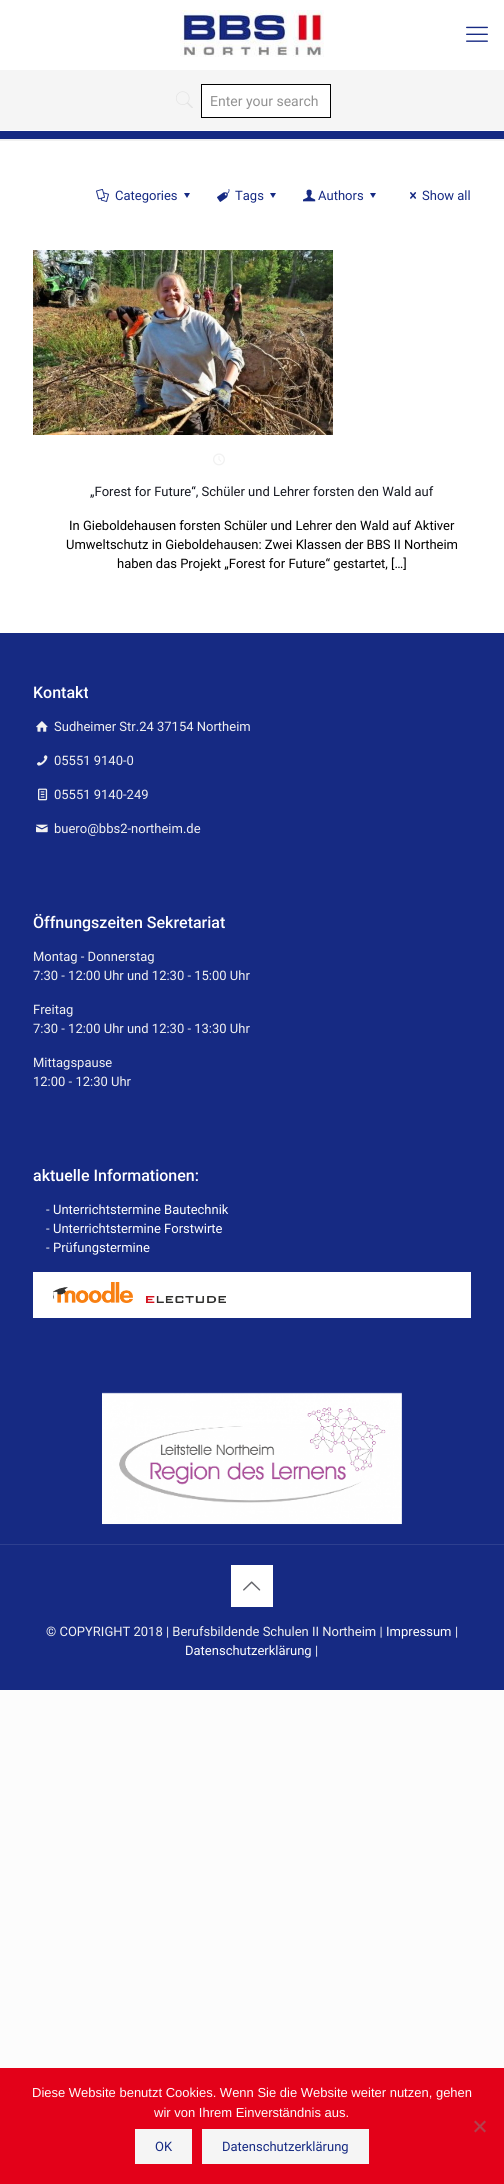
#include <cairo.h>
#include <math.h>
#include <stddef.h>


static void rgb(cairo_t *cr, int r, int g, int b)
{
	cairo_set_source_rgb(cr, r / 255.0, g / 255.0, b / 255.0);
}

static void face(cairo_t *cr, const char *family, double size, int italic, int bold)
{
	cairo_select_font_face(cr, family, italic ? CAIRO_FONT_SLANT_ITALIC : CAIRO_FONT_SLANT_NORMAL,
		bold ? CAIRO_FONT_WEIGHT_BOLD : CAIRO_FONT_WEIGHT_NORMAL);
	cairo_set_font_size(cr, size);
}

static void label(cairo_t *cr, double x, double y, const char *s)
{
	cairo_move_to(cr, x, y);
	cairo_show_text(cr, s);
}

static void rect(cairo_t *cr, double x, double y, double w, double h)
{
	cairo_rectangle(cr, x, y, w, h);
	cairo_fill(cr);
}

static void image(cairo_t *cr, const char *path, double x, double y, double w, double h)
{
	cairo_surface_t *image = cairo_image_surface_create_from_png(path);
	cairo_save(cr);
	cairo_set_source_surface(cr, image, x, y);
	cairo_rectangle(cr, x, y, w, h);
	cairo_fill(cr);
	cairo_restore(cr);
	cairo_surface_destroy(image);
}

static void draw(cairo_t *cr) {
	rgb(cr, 252, 252, 252);
	cairo_paint(cr);
	rgb(cr, 255, 255, 255);
	rect(cr, 0, 0, 504, 633);
	image(cr, "image0.png", 180, 10, 144, 47);
	image(cr, "image1.png", 466, 26, 22, 16);
	rgb(cr, 245, 245, 245);
	rect(cr, 0, 70, 504, 60);
	image(cr, "image2.png", 176, 91, 17, 17);
	rgb(cr, 255, 255, 255);
	cairo_rectangle(cr, 201.5, 84.5, 129, 33);
	cairo_fill_preserve(cr);
	rgb(cr, 0, 0, 0);
	cairo_set_line_width(cr, 1);
	cairo_stroke(cr);
	face(cr, "Roboto", 14, 0, 0);
	rgb(cr, 146, 146, 146);
	label(cr, 210, 106, "Enter your search");
	rgb(cr, 241, 241, 241);
	rect(cr, 0, 139, 504, 2);
	rgb(cr, 22, 42, 131);
	rect(cr, 0, 131, 504, 8);
	image(cr, "image3.png", 96, 189, 13, 13);
	face(cr, "Roboto", 13, 0, 0);
	label(cr, 115, 200, "Categories");
	cairo_new_path(cr);
	cairo_move_to(cr, 190, 193);
	cairo_line_to(cr, 187, 198);
	cairo_line_to(cr, 184, 193);
	cairo_close_path(cr);
	cairo_fill(cr);
	image(cr, "image4.png", 217, 189, 13, 13);
	label(cr, 235, 200, "Tags");
	cairo_new_path(cr);
	cairo_move_to(cr, 276, 193);
	cairo_line_to(cr, 273, 198);
	cairo_line_to(cr, 270, 193);
	cairo_close_path(cr);
	cairo_fill(cr);
	image(cr, "image5.png", 303, 189, 13, 13);
	label(cr, 318, 200, "Authors");
	cairo_new_path(cr);
	cairo_move_to(cr, 376, 193);
	cairo_line_to(cr, 373, 198);
	cairo_line_to(cr, 370, 193);
	cairo_close_path(cr);
	cairo_fill(cr);
	image(cr, "image6.png", 410, 192, 7, 7);
	label(cr, 422, 200, "Show all");
	image(cr, "image7.png", 33, 250, 300, 185);
	image(cr, "image8.png", 213, 453, 12, 13);
	rgb(cr, 22, 25, 34);
	label(cr, 90, 496, "„Forest for Future“, Schüler und Lehrer forsten den Wald auf");
	rgb(cr, 0, 0, 0);
	label(cr, 69, 530, "In Gieboldehausen forsten Schüler und Lehrer den Wald auf Aktiver");
	label(cr, 66, 549, "Umweltschutz in Gieboldehausen: Zwei Klassen der BBS II Northeim");
	label(cr, 117, 568, "haben das Projekt „Forest for Future“ gestartet, […]");
	rgb(cr, 22, 42, 131);
	rect(cr, 0, 633, 504, 1057);
	face(cr, "Roboto Medium", 16, 0, 0);
	rgb(cr, 255, 255, 255);
	label(cr, 33, 698, "Kontakt");
	image(cr, "image9.png", 36, 721, 12, 11);
	face(cr, "Roboto", 13, 0, 0);
	rgb(cr, 241, 241, 241);
	label(cr, 54, 731, "Sudheimer Str.24 37154 Northeim");
	image(cr, "image10.png", 37, 755, 11, 11);
	label(cr, 54, 765, "05551 9140-0");
	image(cr, "image11.png", 38, 788, 10, 13);
	label(cr, 54, 799, "05551 9140-249");
	image(cr, "image12.png", 36, 824, 12, 9);
	label(cr, 54, 833, "buero@bbs2-northeim.de");
	face(cr, "Roboto Medium", 16, 0, 0);
	rgb(cr, 255, 255, 255);
	label(cr, 33, 928, "Öffnungszeiten Sekretariat");
	face(cr, "Roboto", 13, 0, 0);
	rgb(cr, 241, 241, 241);
	label(cr, 33, 961, "Montag - Donnerstag");
	label(cr, 33, 980, "7:30 - 12:00 Uhr und 12:30 - 15:00 Uhr");
	label(cr, 33, 1014, "Freitag");
	label(cr, 33, 1033, "7:30 - 12:00 Uhr und 12:30 - 13:30 Uhr");
	label(cr, 33, 1067, "Mittagspause");
	label(cr, 33, 1086, "12:00 - 12:30 Uhr");
	face(cr, "Roboto Medium", 16, 0, 0);
	rgb(cr, 255, 255, 255);
	label(cr, 33, 1181, "aktuelle Informationen:");
	face(cr, "Roboto", 13, 0, 0);
	rgb(cr, 241, 241, 241);
	label(cr, 46, 1214, "-");
	rgb(cr, 255, 255, 255);
	label(cr, 53, 1214, "Unterrichtstermine Bautechnik");
	rgb(cr, 241, 241, 241);
	label(cr, 46, 1233, "-");
	rgb(cr, 255, 255, 255);
	label(cr, 53, 1233, "Unterrichtstermine Forstwirte");
	rgb(cr, 241, 241, 241);
	label(cr, 46, 1252, "-");
	rgb(cr, 255, 255, 255);
	label(cr, 53, 1252, "Prüfungstermine");
	rect(cr, 33, 1272, 438, 46);
	image(cr, "image13.png", 53, 1282, 80, 21);
	image(cr, "image14.png", 146, 1296, 80, 7);
	image(cr, "image15.png", 102, 1392, 300, 133);
	rgb(cr, 45, 63, 143);
	rect(cr, 0, 1544, 504, 1);
	rgb(cr, 255, 255, 255);
	rect(cr, 231, 1565, 42, 42);
	image(cr, "image16.png", 243, 1581, 18, 10);
	rgb(cr, 241, 241, 241);
	label(cr, 46, 1636, "© COPYRIGHT 2018 | Berufsbildende Schulen II Northeim |");
	rgb(cr, 255, 255, 255);
	label(cr, 386, 1636, "Impressum");
	rgb(cr, 241, 241, 241);
	label(cr, 455, 1636, "|");
	rgb(cr, 255, 255, 255);
	label(cr, 185, 1655, "Datenschutzerklärung");
	rgb(cr, 241, 241, 241);
	label(cr, 315, 1655, "|");
	rgb(cr, 227, 1, 25);
	rect(cr, 0, 2068, 504, 116);
	face(cr, "Liberation Sans", 13, 0, 0);
	rgb(cr, 255, 255, 255);
	label(cr, 32, 2097, "Diese Website benutzt Cookies. Wenn Sie die Website weiter nutzen, gehen");
	label(cr, 154, 2117, "wir von Ihrem Einverständnis aus.");
	rgb(cr, 178, 65, 77);
	cairo_new_path(cr);
	cairo_move_to(cr, 484.5, 2120.5);
	cairo_line_to(cr, 486, 2122);
	cairo_line_to(cr, 475.5, 2132.5);
	cairo_line_to(cr, 474, 2131);
	cairo_close_path(cr);
	cairo_fill(cr);
	cairo_new_path(cr);
	cairo_move_to(cr, 474, 2122);
	cairo_line_to(cr, 475.5, 2120.5);
	cairo_line_to(cr, 486, 2131);
	cairo_line_to(cr, 484.5, 2132.5);
	cairo_close_path(cr);
	cairo_fill(cr);
	rgb(cr, 245, 245, 245);
	rect(cr, 135, 2129, 57, 35);
	face(cr, "Roboto", 13, 0, 0);
	rgb(cr, 22, 42, 131);
	label(cr, 155, 2151, "OK");
	rgb(cr, 245, 245, 245);
	rect(cr, 202, 2129, 167, 35);
	rgb(cr, 22, 42, 131);
	label(cr, 222, 2151, "Datenschutzerklärung");
}

int main(void) {
	cairo_surface_t *surface = cairo_image_surface_create(CAIRO_FORMAT_RGB24, 504, 2184);
	cairo_t *cr = cairo_create(surface);
	cairo_font_options_t *options = cairo_font_options_create();
	cairo_font_options_set_hint_metrics(options, CAIRO_HINT_METRICS_OFF);
	cairo_font_options_set_hint_style(options, CAIRO_HINT_STYLE_NONE);
	cairo_set_font_options(cr, options);
	cairo_set_miter_limit(cr, 4);
	draw(cr);
	cairo_surface_write_to_png(surface, "render.png");
	cairo_font_options_destroy(options);
	cairo_destroy(cr);
	cairo_surface_destroy(surface);
	return 0;
}
